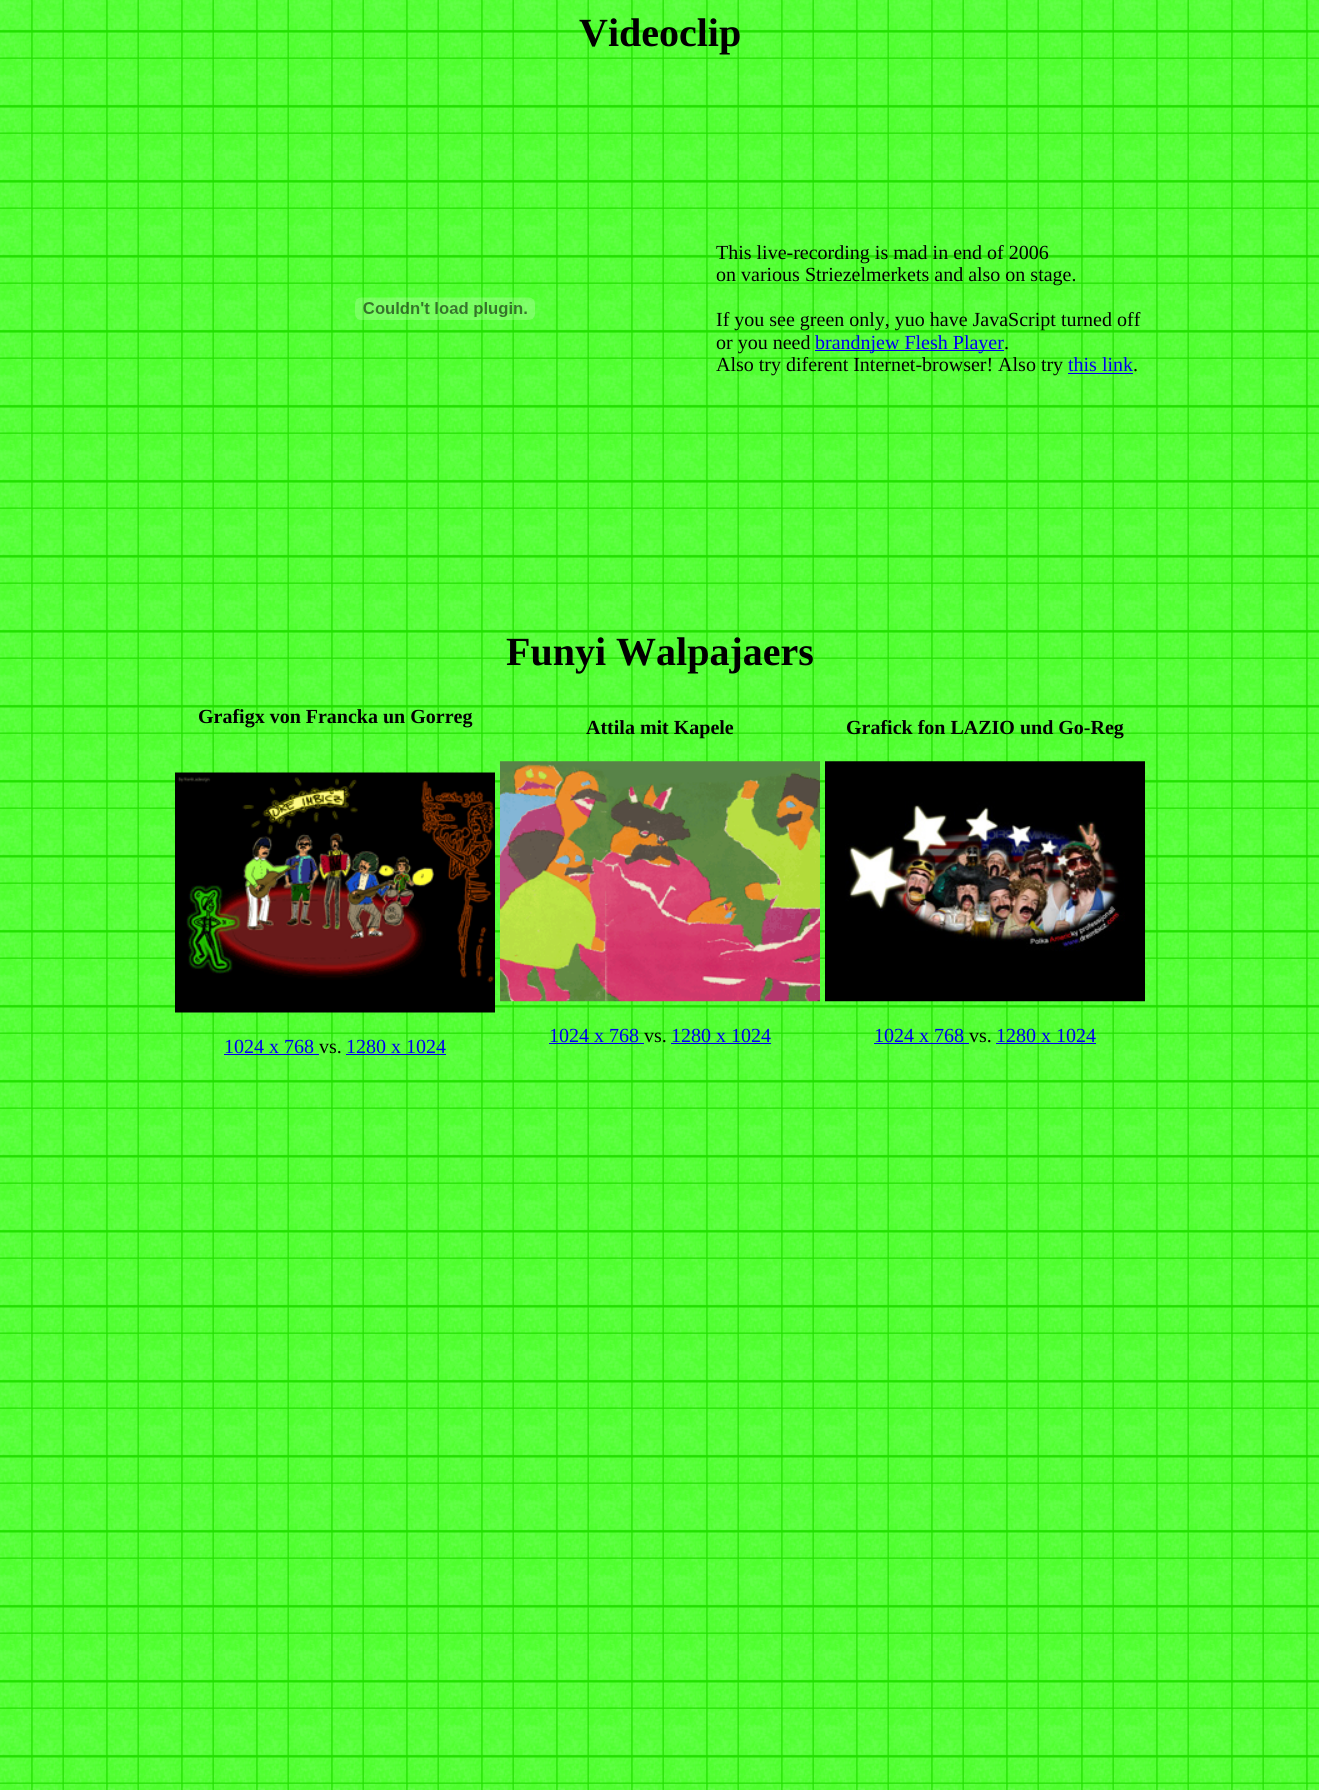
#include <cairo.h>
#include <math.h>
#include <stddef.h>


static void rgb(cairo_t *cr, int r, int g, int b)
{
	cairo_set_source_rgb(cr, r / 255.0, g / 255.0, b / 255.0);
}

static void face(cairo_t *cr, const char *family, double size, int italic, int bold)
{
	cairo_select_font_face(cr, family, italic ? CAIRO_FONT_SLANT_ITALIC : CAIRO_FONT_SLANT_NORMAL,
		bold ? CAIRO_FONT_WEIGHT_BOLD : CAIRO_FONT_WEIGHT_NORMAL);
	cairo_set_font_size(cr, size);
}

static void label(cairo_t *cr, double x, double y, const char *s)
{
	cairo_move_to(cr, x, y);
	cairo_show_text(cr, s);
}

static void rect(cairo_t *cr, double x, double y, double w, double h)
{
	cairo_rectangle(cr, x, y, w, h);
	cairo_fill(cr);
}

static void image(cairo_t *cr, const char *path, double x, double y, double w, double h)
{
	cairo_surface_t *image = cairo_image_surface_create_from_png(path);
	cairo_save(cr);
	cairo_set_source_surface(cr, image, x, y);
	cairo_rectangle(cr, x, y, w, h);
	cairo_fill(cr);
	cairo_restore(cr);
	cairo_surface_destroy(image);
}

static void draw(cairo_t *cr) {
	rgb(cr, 255, 255, 255);
	cairo_paint(cr);
	image(cr, "image0.png", 0, 0, 1319, 1790);
	face(cr, "Liberation Serif", 40, 0, 1);
	rgb(cr, 0, 0, 0);
	label(cr, 579, 46, "Videoclip");
	image(cr, "image1.png", 355, 297, 180, 23);
	face(cr, "Liberation Serif", 20, 0, 0);
	label(cr, 716, 259, "This live-recording is mad in end of 2006");
	label(cr, 716, 281, "on various Striezelmerkets and also on stage.");
	label(cr, 716, 326, "If you see green only, yuo have JavaScript turned off");
	label(cr, 716, 349, "or you need");
	rgb(cr, 0, 0, 238);
	rect(cr, 815, 350, 189, 1);
	label(cr, 815, 349, "brandnjew Flesh Player");
	rgb(cr, 0, 0, 0);
	label(cr, 1004, 349, ".");
	label(cr, 716, 371, "Also try diferent Internet-browser! Also try");
	rgb(cr, 0, 0, 238);
	label(cr, 1068, 371, "this link");
	rect(cr, 1068, 373, 65, 1);
	rgb(cr, 0, 0, 0);
	label(cr, 1133, 371, ".");
	face(cr, "Liberation Serif", 40, 0, 1);
	label(cr, 506, 665, "Funyi Walpajaers");
	face(cr, "Liberation Serif", 20, 0, 1);
	label(cr, 198, 723, "Grafigx von Francka un Gorreg");
	image(cr, "image2.png", 175, 772, 320, 241);
	face(cr, "Liberation Serif", 20, 0, 0);
	rgb(cr, 0, 0, 238);
	label(cr, 224, 1053, "1024 x 768");
	rect(cr, 224, 1054, 95, 1);
	rgb(cr, 0, 0, 0);
	label(cr, 319, 1053, "vs.");
	rgb(cr, 0, 0, 238);
	label(cr, 346, 1053, "1280 x 1024");
	rect(cr, 346, 1054, 100, 1);
	face(cr, "Liberation Serif", 20, 0, 1);
	rgb(cr, 0, 0, 0);
	label(cr, 586, 734, "Attila mit Kapele");
	image(cr, "image3.png", 500, 761, 320, 241);
	face(cr, "Liberation Serif", 20, 0, 0);
	rgb(cr, 0, 0, 238);
	label(cr, 549, 1042, "1024 x 768");
	rect(cr, 549, 1043, 95, 1);
	rgb(cr, 0, 0, 0);
	label(cr, 644, 1042, "vs.");
	rgb(cr, 0, 0, 238);
	label(cr, 671, 1042, "1280 x 1024");
	rect(cr, 671, 1043, 100, 1);
	face(cr, "Liberation Serif", 20, 0, 1);
	rgb(cr, 0, 0, 0);
	label(cr, 846, 734, "Grafick fon LAZIO und Go-Reg");
	image(cr, "image4.png", 825, 761, 320, 241);
	face(cr, "Liberation Serif", 20, 0, 0);
	rgb(cr, 0, 0, 238);
	label(cr, 874, 1042, "1024 x 768");
	rect(cr, 874, 1043, 95, 1);
	rgb(cr, 0, 0, 0);
	label(cr, 969, 1042, "vs.");
	rgb(cr, 0, 0, 238);
	label(cr, 996, 1042, "1280 x 1024");
	rect(cr, 996, 1043, 100, 1);
}

int main(void) {
	cairo_surface_t *surface = cairo_image_surface_create(CAIRO_FORMAT_RGB24, 1319, 1790);
	cairo_t *cr = cairo_create(surface);
	cairo_font_options_t *options = cairo_font_options_create();
	cairo_font_options_set_hint_metrics(options, CAIRO_HINT_METRICS_OFF);
	cairo_font_options_set_hint_style(options, CAIRO_HINT_STYLE_NONE);
	cairo_set_font_options(cr, options);
	cairo_set_miter_limit(cr, 4);
	draw(cr);
	cairo_surface_write_to_png(surface, "render.png");
	cairo_font_options_destroy(options);
	cairo_destroy(cr);
	cairo_surface_destroy(surface);
	return 0;
}
